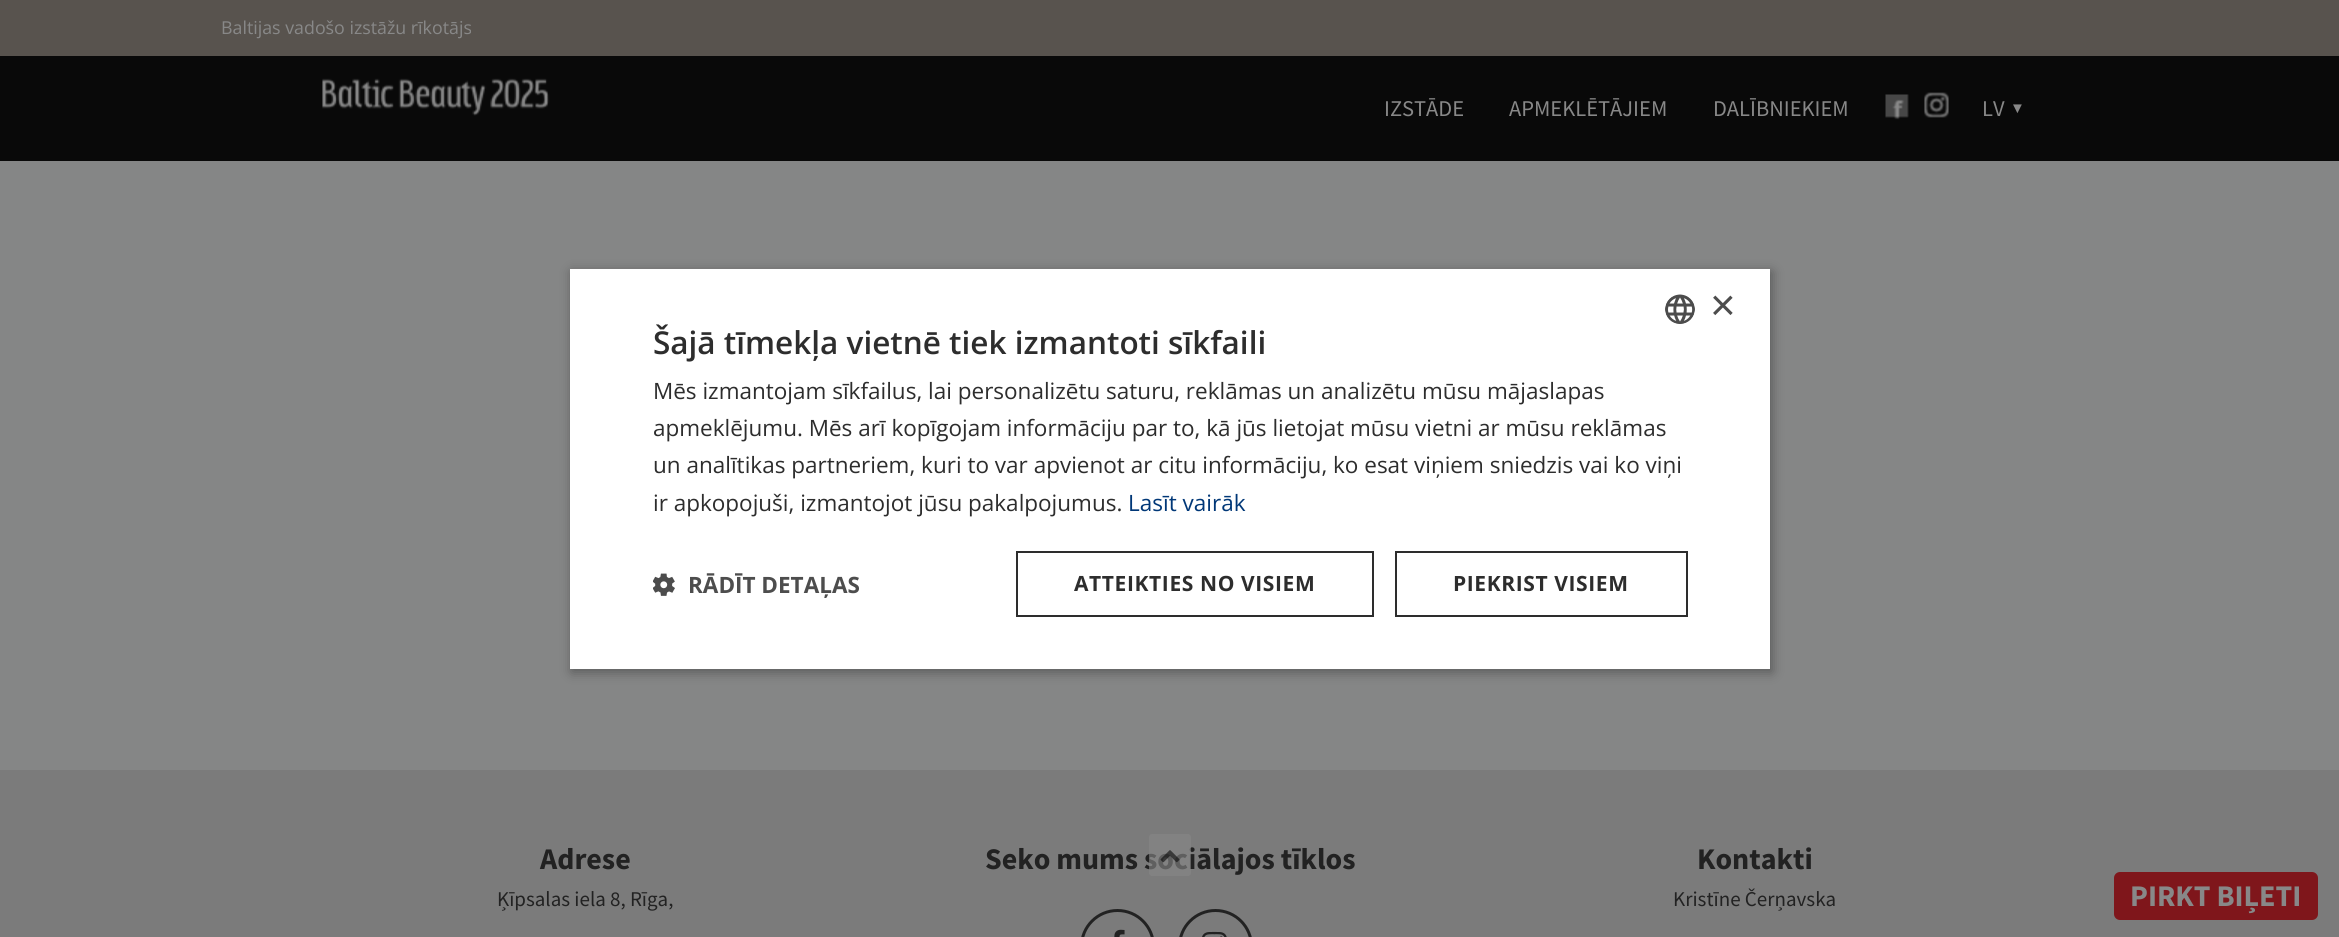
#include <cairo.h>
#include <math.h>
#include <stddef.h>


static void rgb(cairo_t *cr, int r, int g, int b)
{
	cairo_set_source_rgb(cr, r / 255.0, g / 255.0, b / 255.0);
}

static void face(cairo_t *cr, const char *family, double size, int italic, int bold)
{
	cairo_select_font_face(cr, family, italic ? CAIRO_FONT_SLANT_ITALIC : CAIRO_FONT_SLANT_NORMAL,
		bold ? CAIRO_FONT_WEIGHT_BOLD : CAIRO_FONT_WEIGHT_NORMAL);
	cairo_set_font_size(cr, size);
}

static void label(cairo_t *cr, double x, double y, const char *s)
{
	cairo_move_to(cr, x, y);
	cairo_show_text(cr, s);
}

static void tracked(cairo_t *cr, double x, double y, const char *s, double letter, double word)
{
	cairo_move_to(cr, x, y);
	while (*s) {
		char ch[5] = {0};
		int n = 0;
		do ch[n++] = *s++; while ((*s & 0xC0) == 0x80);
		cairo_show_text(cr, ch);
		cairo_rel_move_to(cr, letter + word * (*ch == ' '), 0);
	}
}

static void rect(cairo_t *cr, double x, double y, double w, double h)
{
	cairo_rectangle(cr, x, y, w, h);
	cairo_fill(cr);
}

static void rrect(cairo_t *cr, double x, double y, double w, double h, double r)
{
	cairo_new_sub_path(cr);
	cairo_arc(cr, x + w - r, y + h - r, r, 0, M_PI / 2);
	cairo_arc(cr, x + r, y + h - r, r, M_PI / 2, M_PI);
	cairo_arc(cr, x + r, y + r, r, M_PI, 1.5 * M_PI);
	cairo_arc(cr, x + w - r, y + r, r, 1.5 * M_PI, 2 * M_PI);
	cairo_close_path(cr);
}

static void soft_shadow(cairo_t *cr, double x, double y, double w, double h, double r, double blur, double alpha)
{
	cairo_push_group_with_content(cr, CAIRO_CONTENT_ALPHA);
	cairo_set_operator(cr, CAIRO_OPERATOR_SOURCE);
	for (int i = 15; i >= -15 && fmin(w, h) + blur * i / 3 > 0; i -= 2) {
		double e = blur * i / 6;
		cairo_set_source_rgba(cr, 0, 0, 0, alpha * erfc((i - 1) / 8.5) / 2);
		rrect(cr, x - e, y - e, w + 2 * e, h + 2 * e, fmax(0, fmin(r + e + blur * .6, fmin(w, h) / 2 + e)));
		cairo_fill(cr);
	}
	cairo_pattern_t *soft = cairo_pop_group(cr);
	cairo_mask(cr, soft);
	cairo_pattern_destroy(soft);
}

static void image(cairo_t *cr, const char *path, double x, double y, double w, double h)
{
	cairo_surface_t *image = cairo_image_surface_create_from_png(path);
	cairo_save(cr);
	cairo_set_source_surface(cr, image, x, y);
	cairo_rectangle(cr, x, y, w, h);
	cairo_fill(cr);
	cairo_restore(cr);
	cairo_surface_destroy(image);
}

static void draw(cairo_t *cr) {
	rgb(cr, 133, 134, 134);
	cairo_paint(cr);
	rgb(cr, 9, 9, 9);
	rect(cr, 0, 56, 2339, 105);
	rgb(cr, 88, 83, 78);
	rect(cr, 0, 0, 2339, 56);
	face(cr, "Open Sans", 17.8, 0, 0);
	rgb(cr, 136, 136, 136);
	label(cr, 221, 34, "Baltijas vadošo izstāžu rīkotājs");
	image(cr, "image0.png", 322, 78, 228, 38);
	face(cr, "Source Sans Pro", 22.5, 0, 0);
	label(cr, 1384, 116, "IZSTĀDE");
	label(cr, 1509, 116, "APMEKLĒTĀJIEM");
	label(cr, 1713, 116, "DALĪBNIEKIEM");
	image(cr, "image1.png", 1885, 94, 24, 26);
	image(cr, "image2.png", 1924, 92, 25, 26);
	label(cr, 1982, 116, "LV");
	face(cr, "Liberation Sans", 15, 0, 0);
	label(cr, 2010, 113, "▼");
	rgb(cr, 0, 0, 0);
	soft_shadow(cr, 572, 272, 1200, 400, 0, 6, 0.35);
	rgb(cr, 255, 255, 255);
	rect(cr, 570, 269, 1200, 400);
	image(cr, "image3.png", 1665, 294, 30, 30);
	face(cr, "Liberation Sans", 44, 0, 0);
	rgb(cr, 77, 77, 77);
	label(cr, 1710, 320, "×");
	face(cr, "Open Sans SemiBold", 31.5, 0, 0);
	rgb(cr, 45, 45, 45);
	label(cr, 653, 354, "Šajā tīmekļa vietnē tiek izmantoti sīkfaili");
	face(cr, "Open Sans", 22.5, 0, 0);
	label(cr, 653, 399, "Mēs izmantojam sīkfailus, lai personalizētu saturu, reklāmas un analizētu mūsu mājaslapas");
	label(cr, 653, 436, "apmeklējumu. Mēs arī kopīgojam informāciju par to, kā jūs lietojat mūsu vietni ar mūsu reklāmas");
	label(cr, 653, 473, "un analītikas partneriem, kuri to var apvienot ar citu informāciju, ko esat viņiem sniedzis vai ko viņi");
	label(cr, 653, 511, "ir apkopojuši, izmantojot jūsu pakalpojumus.");
	rgb(cr, 0, 55, 119);
	label(cr, 1128, 511, "Lasīt vairāk");
	image(cr, "image4.png", 653, 573, 22, 23);
	face(cr, "Open Sans", 22.5, 0, 1);
	rgb(cr, 77, 77, 77);
	label(cr, 688, 593, "RĀDĪT DETAĻAS");
	cairo_rectangle(cr, 1017, 552, 356, 64);
	rgb(cr, 45, 45, 45);
	cairo_stroke(cr);
	face(cr, "Open Sans", 21, 0, 1);
	tracked(cr, 1074, 591, "ATTEIKTIES NO VISIEM", 0.6, 0);
	cairo_rectangle(cr, 1396, 552, 291, 64);
	cairo_stroke(cr);
	tracked(cr, 1453, 591, "PIEKRIST VISIEM", 0.6, 0);
	rgb(cr, 123, 123, 123);
	rect(cr, 0, 770, 2339, 167);
	face(cr, "Source Sans Pro", 30, 0, 1);
	rgb(cr, 34, 34, 34);
	label(cr, 985, 869, "Seko mums sociālajos tīklos");
	cairo_set_source_rgba(cr, 0.533, 0.533, 0.533, 0.6);
	rrect(cr, 1149, 834, 42, 42, 3);
	cairo_fill(cr);
	image(cr, "image5.png", 1160, 850, 20, 13);
	rgb(cr, 34, 34, 34);
	label(cr, 540, 869, "Adrese");
	face(cr, "Source Sans Pro", 21, 0, 0);
	label(cr, 497, 906, "Ķīpsalas iela 8, Rīga,");
	rrect(cr, 1081.5, 910.5, 72, 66, 36);
	cairo_set_line_width(cr, 3);
	cairo_stroke(cr);
	image(cr, "image6.png", 1114, 929, 11, 8);
	rrect(cr, 1179.5, 910.5, 72, 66, 36);
	cairo_stroke(cr);
	image(cr, "image7.png", 1202, 931, 25, 6);
	face(cr, "Source Sans Pro", 30, 0, 1);
	label(cr, 1697, 869, "Kontakti");
	face(cr, "Source Sans Pro", 21, 0, 0);
	label(cr, 1673, 906, "Kristīne Čerņavska");
	rgb(cr, 127, 22, 27);
	rrect(cr, 2114, 872, 204, 48, 6);
	cairo_fill(cr);
	face(cr, "Source Sans Pro", 30, 0, 1);
	rgb(cr, 136, 136, 136);
	label(cr, 2130, 906, "PIRKT BIĻETI");
}

int main(void) {
	cairo_surface_t *surface = cairo_image_surface_create(CAIRO_FORMAT_RGB24, 2339, 937);
	cairo_t *cr = cairo_create(surface);
	cairo_font_options_t *options = cairo_font_options_create();
	cairo_font_options_set_hint_metrics(options, CAIRO_HINT_METRICS_OFF);
	cairo_font_options_set_hint_style(options, CAIRO_HINT_STYLE_NONE);
	cairo_set_font_options(cr, options);
	cairo_set_miter_limit(cr, 4);
	draw(cr);
	cairo_surface_write_to_png(surface, "render.png");
	cairo_font_options_destroy(options);
	cairo_destroy(cr);
	cairo_surface_destroy(surface);
	return 0;
}
